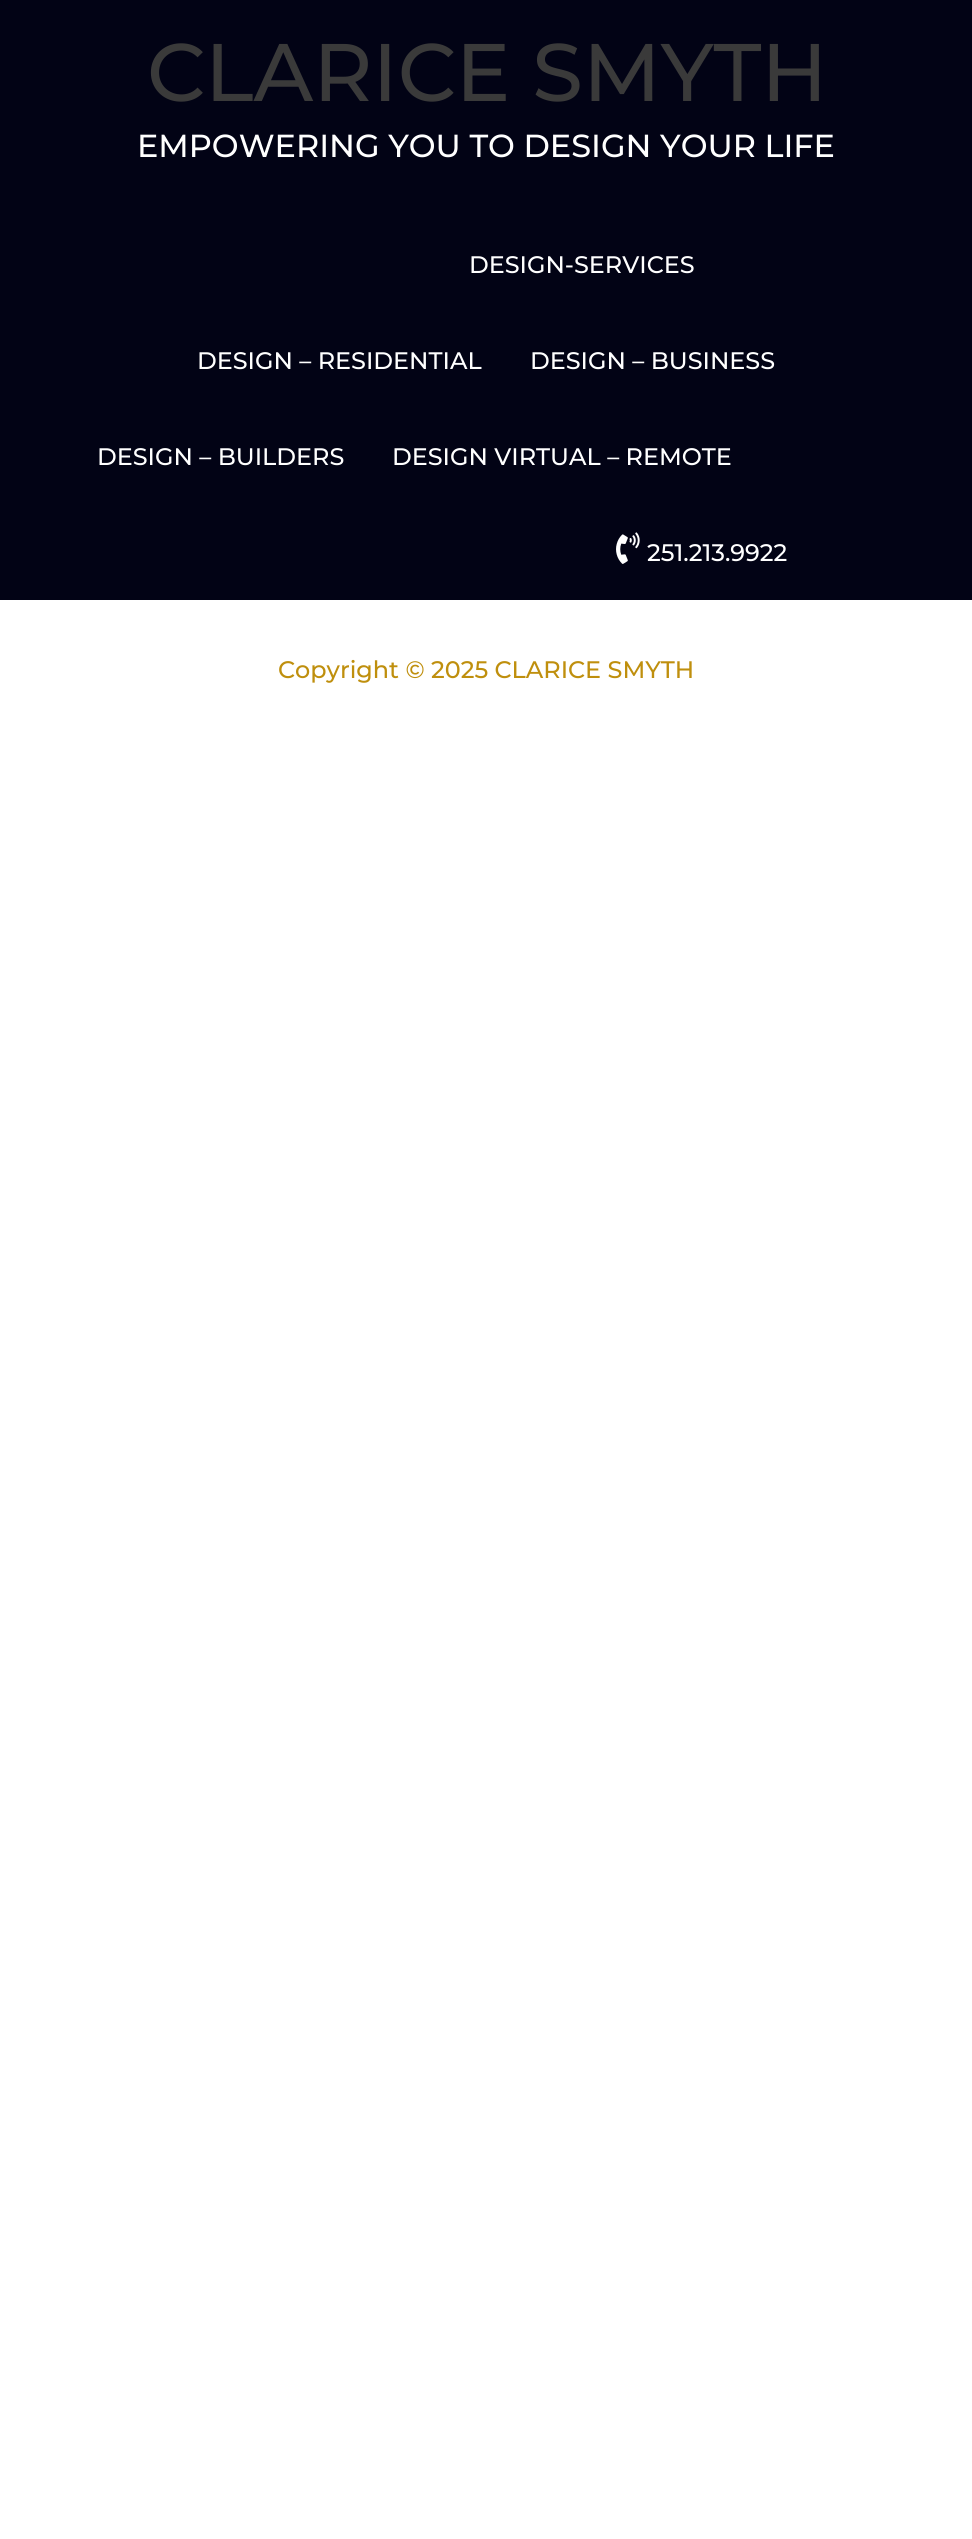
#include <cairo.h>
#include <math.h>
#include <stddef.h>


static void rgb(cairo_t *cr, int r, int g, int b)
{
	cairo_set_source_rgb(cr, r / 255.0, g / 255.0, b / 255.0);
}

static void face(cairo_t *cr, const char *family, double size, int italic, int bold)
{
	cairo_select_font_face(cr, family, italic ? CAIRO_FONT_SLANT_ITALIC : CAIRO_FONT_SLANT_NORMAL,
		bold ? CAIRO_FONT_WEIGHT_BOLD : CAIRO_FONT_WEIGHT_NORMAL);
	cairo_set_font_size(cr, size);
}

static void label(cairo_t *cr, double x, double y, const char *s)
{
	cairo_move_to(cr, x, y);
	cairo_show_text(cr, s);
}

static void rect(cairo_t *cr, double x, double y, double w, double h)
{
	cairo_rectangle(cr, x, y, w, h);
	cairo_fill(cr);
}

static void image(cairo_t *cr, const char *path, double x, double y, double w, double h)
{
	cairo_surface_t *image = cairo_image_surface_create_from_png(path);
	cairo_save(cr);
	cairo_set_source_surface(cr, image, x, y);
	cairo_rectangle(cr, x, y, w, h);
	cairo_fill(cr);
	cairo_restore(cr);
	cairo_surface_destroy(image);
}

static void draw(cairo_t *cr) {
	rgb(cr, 255, 255, 255);
	cairo_paint(cr);
	rgb(cr, 2, 3, 21);
	rect(cr, 0, 0, 972, 600);
	face(cr, "Montserrat Thin", 81.5, 0, 0);
	rgb(cr, 58, 58, 58);
	label(cr, 147, 101, "CLARICE SMYTH");
	face(cr, "Montserrat Thin", 31.9, 0, 0);
	rgb(cr, 255, 255, 255);
	label(cr, 137, 157, "EMPOWERING YOU TO DESIGN YOUR LIFE");
	face(cr, "Montserrat Thin", 23.9, 0, 0);
	label(cr, 469, 273, "DESIGN-SERVICES");
	label(cr, 197, 369, "DESIGN – RESIDENTIAL");
	label(cr, 530, 369, "DESIGN – BUSINESS");
	label(cr, 97, 465, "DESIGN – BUILDERS");
	label(cr, 392, 465, "DESIGN VIRTUAL – REMOTE");
	image(cr, "image0.png", 616, 532, 24, 32);
	label(cr, 647, 561, "251.213.9922");
	rgb(cr, 191, 143, 13);
	label(cr, 278, 678, "Copyright © 2025 CLARICE SMYTH");
}

int main(void) {
	cairo_surface_t *surface = cairo_image_surface_create(CAIRO_FORMAT_RGB24, 972, 2539);
	cairo_t *cr = cairo_create(surface);
	cairo_font_options_t *options = cairo_font_options_create();
	cairo_font_options_set_hint_metrics(options, CAIRO_HINT_METRICS_OFF);
	cairo_font_options_set_hint_style(options, CAIRO_HINT_STYLE_NONE);
	cairo_set_font_options(cr, options);
	cairo_set_miter_limit(cr, 4);
	draw(cr);
	cairo_surface_write_to_png(surface, "render.png");
	cairo_font_options_destroy(options);
	cairo_destroy(cr);
	cairo_surface_destroy(surface);
	return 0;
}
